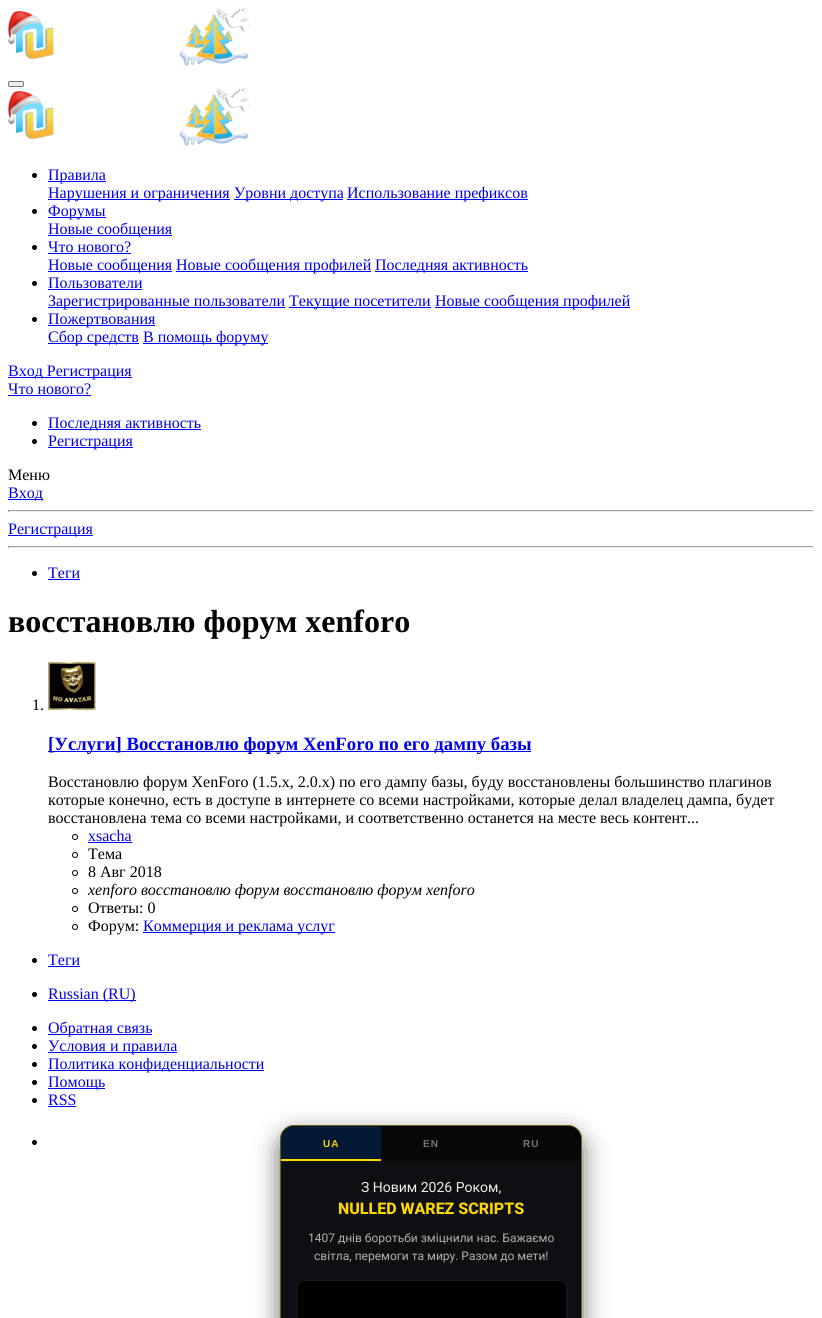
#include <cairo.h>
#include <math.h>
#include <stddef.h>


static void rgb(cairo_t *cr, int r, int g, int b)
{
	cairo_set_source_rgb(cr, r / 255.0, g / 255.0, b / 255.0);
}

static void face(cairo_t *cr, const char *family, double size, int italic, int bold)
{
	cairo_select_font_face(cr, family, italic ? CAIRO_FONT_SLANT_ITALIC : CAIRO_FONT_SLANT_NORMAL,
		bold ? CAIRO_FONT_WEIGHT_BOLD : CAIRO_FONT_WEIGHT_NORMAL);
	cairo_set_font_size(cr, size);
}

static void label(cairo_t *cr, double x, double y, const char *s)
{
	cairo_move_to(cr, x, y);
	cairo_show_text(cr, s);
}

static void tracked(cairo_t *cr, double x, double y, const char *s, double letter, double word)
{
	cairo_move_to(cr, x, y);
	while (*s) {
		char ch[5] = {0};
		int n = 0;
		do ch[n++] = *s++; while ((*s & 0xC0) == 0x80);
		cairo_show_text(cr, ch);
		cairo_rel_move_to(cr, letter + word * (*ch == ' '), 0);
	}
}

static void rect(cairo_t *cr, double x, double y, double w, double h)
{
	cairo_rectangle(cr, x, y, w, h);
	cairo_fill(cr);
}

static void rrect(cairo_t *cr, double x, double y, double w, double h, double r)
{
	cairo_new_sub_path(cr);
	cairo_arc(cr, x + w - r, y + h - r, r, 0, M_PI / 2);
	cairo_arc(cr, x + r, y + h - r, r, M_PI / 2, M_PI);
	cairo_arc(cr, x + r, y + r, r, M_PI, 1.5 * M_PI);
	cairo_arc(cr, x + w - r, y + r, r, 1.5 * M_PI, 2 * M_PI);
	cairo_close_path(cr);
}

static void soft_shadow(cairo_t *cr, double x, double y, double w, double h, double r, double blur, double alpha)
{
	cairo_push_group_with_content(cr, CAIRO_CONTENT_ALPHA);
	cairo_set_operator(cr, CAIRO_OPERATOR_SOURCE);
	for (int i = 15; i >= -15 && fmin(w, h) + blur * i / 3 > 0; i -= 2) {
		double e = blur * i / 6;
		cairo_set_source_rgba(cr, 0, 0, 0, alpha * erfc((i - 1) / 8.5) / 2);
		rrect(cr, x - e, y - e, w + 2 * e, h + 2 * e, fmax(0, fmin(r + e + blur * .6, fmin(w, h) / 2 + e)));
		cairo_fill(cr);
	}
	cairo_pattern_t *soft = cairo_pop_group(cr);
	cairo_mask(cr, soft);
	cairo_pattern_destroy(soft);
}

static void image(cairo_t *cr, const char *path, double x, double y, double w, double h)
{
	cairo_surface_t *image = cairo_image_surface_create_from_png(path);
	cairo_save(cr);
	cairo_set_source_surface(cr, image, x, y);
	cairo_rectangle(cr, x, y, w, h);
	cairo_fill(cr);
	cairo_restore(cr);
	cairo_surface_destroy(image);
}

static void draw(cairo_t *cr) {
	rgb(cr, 255, 255, 255);
	cairo_paint(cr);
	image(cr, "image0.png", 8, 8, 242, 58);
	rgb(cr, 239, 239, 239);
	rrect(cr, 8.5, 81.5, 15, 5, 1.5);
	cairo_fill_preserve(cr);
	rgb(cr, 118, 118, 118);
	cairo_set_line_width(cr, 1);
	cairo_stroke(cr);
	image(cr, "image0.png", 8, 88, 242, 58);
	rgb(cr, 0, 0, 0);
	cairo_arc(cr, 34.5, 175.5, 2.5, 0, 2 * M_PI);
	cairo_fill(cr);
	rgb(cr, 0, 0, 238);
	rect(cr, 48, 181, 58, 1);
	face(cr, "Liberation Serif", 16, 0, 0);
	label(cr, 48, 180, "Правила");
	rect(cr, 48, 199, 182, 1);
	label(cr, 48, 198, "Нарушения и ограничения");
	rect(cr, 234, 199, 109, 1);
	label(cr, 234, 198, "Уровни доступа");
	rect(cr, 347, 199, 181, 1);
	label(cr, 347, 198, "Использование префиксов");
	rgb(cr, 0, 0, 0);
	cairo_new_path(cr);
	cairo_arc(cr, 34.5, 211.5, 2.5, 0, 2 * M_PI);
	cairo_fill(cr);
	rgb(cr, 0, 0, 238);
	rect(cr, 48, 217, 58, 1);
	label(cr, 48, 216, "Форумы");
	rect(cr, 48, 235, 124, 1);
	label(cr, 48, 234, "Новые сообщения");
	rgb(cr, 0, 0, 0);
	cairo_new_path(cr);
	cairo_arc(cr, 34.5, 247.5, 2.5, 0, 2 * M_PI);
	cairo_fill(cr);
	rgb(cr, 0, 0, 238);
	label(cr, 48, 252, "Что нового?");
	rect(cr, 48, 253, 83, 1);
	rect(cr, 48, 271, 124, 1);
	label(cr, 48, 270, "Новые сообщения");
	rect(cr, 176, 271, 195, 1);
	label(cr, 176, 270, "Новые сообщения профилей");
	rect(cr, 375, 271, 153, 1);
	label(cr, 375, 270, "Последняя активность");
	rgb(cr, 0, 0, 0);
	cairo_new_path(cr);
	cairo_arc(cr, 34.5, 283.5, 2.5, 0, 2 * M_PI);
	cairo_fill(cr);
	rgb(cr, 0, 0, 238);
	label(cr, 48, 288, "Пользователи");
	rect(cr, 48, 289, 94, 1);
	rect(cr, 48, 307, 237, 1);
	label(cr, 48, 306, "Зарегистрированные пользователи");
	rect(cr, 289, 307, 142, 1);
	label(cr, 289, 306, "Текущие посетители");
	rect(cr, 435, 307, 195, 1);
	label(cr, 435, 306, "Новые сообщения профилей");
	rgb(cr, 0, 0, 0);
	cairo_new_path(cr);
	cairo_arc(cr, 34.5, 319.5, 2.5, 0, 2 * M_PI);
	cairo_fill(cr);
	rgb(cr, 0, 0, 238);
	rect(cr, 48, 325, 107, 1);
	label(cr, 48, 324, "Пожертвования");
	rect(cr, 48, 343, 91, 1);
	label(cr, 48, 342, "Сбор средств");
	rect(cr, 143, 343, 125, 1);
	label(cr, 143, 342, "В помощь форуму");
	rect(cr, 8, 377, 124, 1);
	label(cr, 8, 376, "Вход Регистрация");
	label(cr, 8, 394, "Что нового?");
	rect(cr, 8, 395, 83, 1);
	rgb(cr, 0, 0, 0);
	cairo_new_path(cr);
	cairo_arc(cr, 34.5, 423.5, 2.5, 0, 2 * M_PI);
	cairo_fill(cr);
	rgb(cr, 0, 0, 238);
	rect(cr, 48, 429, 153, 1);
	label(cr, 48, 428, "Последняя активность");
	rgb(cr, 0, 0, 0);
	cairo_new_path(cr);
	cairo_arc(cr, 34.5, 441.5, 2.5, 0, 2 * M_PI);
	cairo_fill(cr);
	rgb(cr, 0, 0, 238);
	rect(cr, 48, 447, 85, 1);
	label(cr, 48, 446, "Регистрация");
	rgb(cr, 0, 0, 0);
	label(cr, 8, 480, "Меню");
	rgb(cr, 0, 0, 238);
	rect(cr, 8, 499, 35, 1);
	label(cr, 8, 498, "Вход");
	rgb(cr, 159, 159, 159);
	rect(cr, 8, 510, 806, 1);
	rgb(cr, 238, 238, 238);
	rect(cr, 813, 510, 1, 2);
	rect(cr, 8, 511, 806, 1);
	rgb(cr, 159, 159, 159);
	rect(cr, 8, 510, 1, 2);
	rgb(cr, 0, 0, 238);
	rect(cr, 8, 535, 85, 1);
	label(cr, 8, 534, "Регистрация");
	rgb(cr, 159, 159, 159);
	rect(cr, 8, 546, 806, 1);
	rgb(cr, 238, 238, 238);
	rect(cr, 813, 546, 1, 2);
	rect(cr, 8, 547, 806, 1);
	rgb(cr, 159, 159, 159);
	rect(cr, 8, 546, 1, 2);
	rgb(cr, 0, 0, 0);
	cairo_new_path(cr);
	cairo_arc(cr, 34.5, 573.5, 2.5, 0, 2 * M_PI);
	cairo_fill(cr);
	rgb(cr, 0, 0, 238);
	label(cr, 48, 578, "Теги");
	rect(cr, 48, 579, 32, 1);
	face(cr, "Liberation Serif", 32, 0, 1);
	rgb(cr, 0, 0, 0);
	label(cr, 8, 632, "восстановлю форум xenforo");
	face(cr, "Liberation Serif", 16, 0, 0);
	label(cr, 32, 710, "1.");
	image(cr, "image1.png", 48, 662, 48, 48);
	rgb(cr, 0, 0, 238);
	rect(cr, 48, 751, 483, 1);
	face(cr, "Liberation Serif", 18.75, 0, 1);
	label(cr, 48, 750, "[Услуги] Восстановлю форум XenForo по его дампу базы");
	face(cr, "Liberation Serif", 16, 0, 0);
	rgb(cr, 0, 0, 0);
	label(cr, 48, 787, "Восстановлю форум XenForo (1.5.x, 2.0.x) по его дампу базы, буду восстановлены большинство плагинов");
	label(cr, 48, 805, "которые конечно, есть в доступе в интернете со всеми настройками, которые делал владелец дампа, будет");
	label(cr, 48, 823, "восстановлена тема со всеми настройками, и соответственно останется на месте весь контент...");
	cairo_new_path(cr);
	cairo_arc(cr, 75, 837, 2.5, 0, 2 * M_PI);
	cairo_stroke(cr);
	rgb(cr, 0, 0, 238);
	label(cr, 88, 841, "xsacha");
	rect(cr, 88, 842, 44, 1);
	cairo_new_path(cr);
	cairo_arc(cr, 75, 855, 2.5, 0, 2 * M_PI);
	rgb(cr, 0, 0, 0);
	cairo_stroke(cr);
	label(cr, 88, 859, "Тема");
	cairo_new_path(cr);
	cairo_arc(cr, 75, 873, 2.5, 0, 2 * M_PI);
	cairo_stroke(cr);
	label(cr, 88, 877, "8 Авг 2018");
	cairo_new_path(cr);
	cairo_arc(cr, 75, 891, 2.5, 0, 2 * M_PI);
	cairo_stroke(cr);
	face(cr, "Liberation Serif", 16, 1, 0);
	label(cr, 88, 895, "xenforo восстановлю форум восстановлю форум xenforo");
	cairo_new_path(cr);
	cairo_arc(cr, 75, 909, 2.5, 0, 2 * M_PI);
	cairo_stroke(cr);
	face(cr, "Liberation Serif", 16, 0, 0);
	label(cr, 88, 913, "Ответы: 0");
	cairo_new_path(cr);
	cairo_arc(cr, 75, 927, 2.5, 0, 2 * M_PI);
	cairo_stroke(cr);
	label(cr, 88, 931, "Форум:");
	rgb(cr, 0, 0, 238);
	rect(cr, 143, 932, 192, 1);
	label(cr, 143, 931, "Коммерция и реклама услуг");
	rgb(cr, 0, 0, 0);
	cairo_new_path(cr);
	cairo_arc(cr, 34.5, 960.5, 2.5, 0, 2 * M_PI);
	cairo_fill(cr);
	rgb(cr, 0, 0, 238);
	label(cr, 48, 965, "Теги");
	rect(cr, 48, 966, 32, 1);
	rgb(cr, 0, 0, 0);
	cairo_new_path(cr);
	cairo_arc(cr, 34.5, 994.5, 2.5, 0, 2 * M_PI);
	cairo_fill(cr);
	rgb(cr, 0, 0, 238);
	rect(cr, 48, 1000, 88, 1);
	label(cr, 48, 999, "Russian (RU)");
	rgb(cr, 0, 0, 0);
	cairo_new_path(cr);
	cairo_arc(cr, 34.5, 1028.5, 2.5, 0, 2 * M_PI);
	cairo_fill(cr);
	rgb(cr, 0, 0, 238);
	rect(cr, 48, 1034, 104, 1);
	label(cr, 48, 1033, "Обратная связь");
	rgb(cr, 0, 0, 0);
	cairo_new_path(cr);
	cairo_arc(cr, 34.5, 1046.5, 2.5, 0, 2 * M_PI);
	cairo_fill(cr);
	rgb(cr, 0, 0, 238);
	rect(cr, 48, 1052, 129, 1);
	label(cr, 48, 1051, "Условия и правила");
	rgb(cr, 0, 0, 0);
	cairo_new_path(cr);
	cairo_arc(cr, 34.5, 1064.5, 2.5, 0, 2 * M_PI);
	cairo_fill(cr);
	rgb(cr, 0, 0, 238);
	rect(cr, 48, 1070, 216, 1);
	label(cr, 48, 1069, "Политика конфиденциальности");
	rgb(cr, 0, 0, 0);
	cairo_new_path(cr);
	cairo_arc(cr, 34.5, 1082.5, 2.5, 0, 2 * M_PI);
	cairo_fill(cr);
	rgb(cr, 0, 0, 238);
	rect(cr, 48, 1088, 57, 1);
	label(cr, 48, 1087, "Помощь");
	rgb(cr, 0, 0, 0);
	cairo_new_path(cr);
	cairo_arc(cr, 34.5, 1100.5, 2.5, 0, 2 * M_PI);
	cairo_fill(cr);
	rgb(cr, 0, 0, 238);
	label(cr, 48, 1105, "RSS");
	rect(cr, 48, 1106, 28, 1);
	rgb(cr, 0, 0, 0);
	cairo_new_path(cr);
	cairo_arc(cr, 34.5, 1142.5, 2.5, 0, 2 * M_PI);
	cairo_fill(cr);
	rgb(cr, 0, 0, 0);
	soft_shadow(cr, 280, 1135, 302, 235, 14, 12.5, 0.6);
	rgb(cr, 13, 15, 18);
	rrect(cr, 280, 1125, 302, 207, 14);
	cairo_fill(cr);
	rrect(cr, 280.5, 1125.5, 301, 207, 13.5);
	cairo_set_source_rgba(cr, 1, 0.843, 0, 0.4);
	cairo_stroke(cr);
	cairo_set_source_rgba(cr, 0, 0, 0, 0.5);
	cairo_new_path(cr);
	cairo_move_to(cr, 294, 1126);
	cairo_line_to(cr, 568, 1126);
	cairo_curve_to(cr, 575, 1126, 581, 1132, 581, 1139);
	cairo_line_to(cr, 581, 1162);
	cairo_line_to(cr, 281, 1162);
	cairo_line_to(cr, 281, 1139);
	cairo_curve_to(cr, 281, 1132, 287, 1126, 294, 1126);
	cairo_close_path(cr);
	cairo_fill(cr);
	rgb(cr, 19, 20, 21);
	rect(cr, 281, 1161, 300, 1);
	cairo_set_source_rgba(cr, 0, 0.341, 0.718, 0.25);
	cairo_new_path(cr);
	cairo_move_to(cr, 294, 1126);
	cairo_line_to(cr, 381, 1126);
	cairo_line_to(cr, 381, 1161);
	cairo_line_to(cr, 281, 1161);
	cairo_line_to(cr, 281, 1139);
	cairo_curve_to(cr, 281, 1132, 287, 1126, 294, 1126);
	cairo_close_path(cr);
	cairo_fill(cr);
	rgb(cr, 255, 215, 0);
	rect(cr, 281, 1159, 100, 2);
	face(cr, "Liberation Sans", 10, 0, 1);
	tracked(cr, 323, 1147, "UA", 1, 0);
	rgb(cr, 119, 119, 119);
	tracked(cr, 423, 1147, "EN", 1, 0);
	tracked(cr, 523, 1147, "RU", 1, 0);
	face(cr, "Roboto", 14, 0, 0);
	rgb(cr, 238, 238, 238);
	label(cr, 361, 1192, "З Новим 2026 Роком,");
	face(cr, "Roboto ExtraBold", 16, 0, 0);
	rgb(cr, 255, 215, 0);
	label(cr, 338, 1214, "NULLED WAREZ SCRIPTS");
	face(cr, "Roboto", 12, 0, 0);
	rgb(cr, 176, 176, 176);
	label(cr, 308, 1242, "1407 днів боротьби зміцнили нас. Бажаємо");
	label(cr, 314, 1260, "світла, перемоги та миру. Разом до мети!");
	rgb(cr, 0, 0, 0);
	rrect(cr, 297, 1280, 270, 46, 8);
	cairo_fill(cr);
	rrect(cr, 297.5, 1280.5, 269, 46, 7.5);
	cairo_set_source_rgba(cr, 1, 1, 1, 0.1);
	cairo_stroke(cr);
	cairo_set_source_rgba(cr, 0, 0, 0, 0.6);
	rrect(cr, 298, 1281, 268, 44, 7);
	cairo_fill(cr);
}

int main(void) {
	cairo_surface_t *surface = cairo_image_surface_create(CAIRO_FORMAT_RGB24, 822, 1318);
	cairo_t *cr = cairo_create(surface);
	cairo_font_options_t *options = cairo_font_options_create();
	cairo_font_options_set_hint_metrics(options, CAIRO_HINT_METRICS_OFF);
	cairo_font_options_set_hint_style(options, CAIRO_HINT_STYLE_NONE);
	cairo_set_font_options(cr, options);
	cairo_set_miter_limit(cr, 4);
	draw(cr);
	cairo_surface_write_to_png(surface, "render.png");
	cairo_font_options_destroy(options);
	cairo_destroy(cr);
	cairo_surface_destroy(surface);
	return 0;
}
